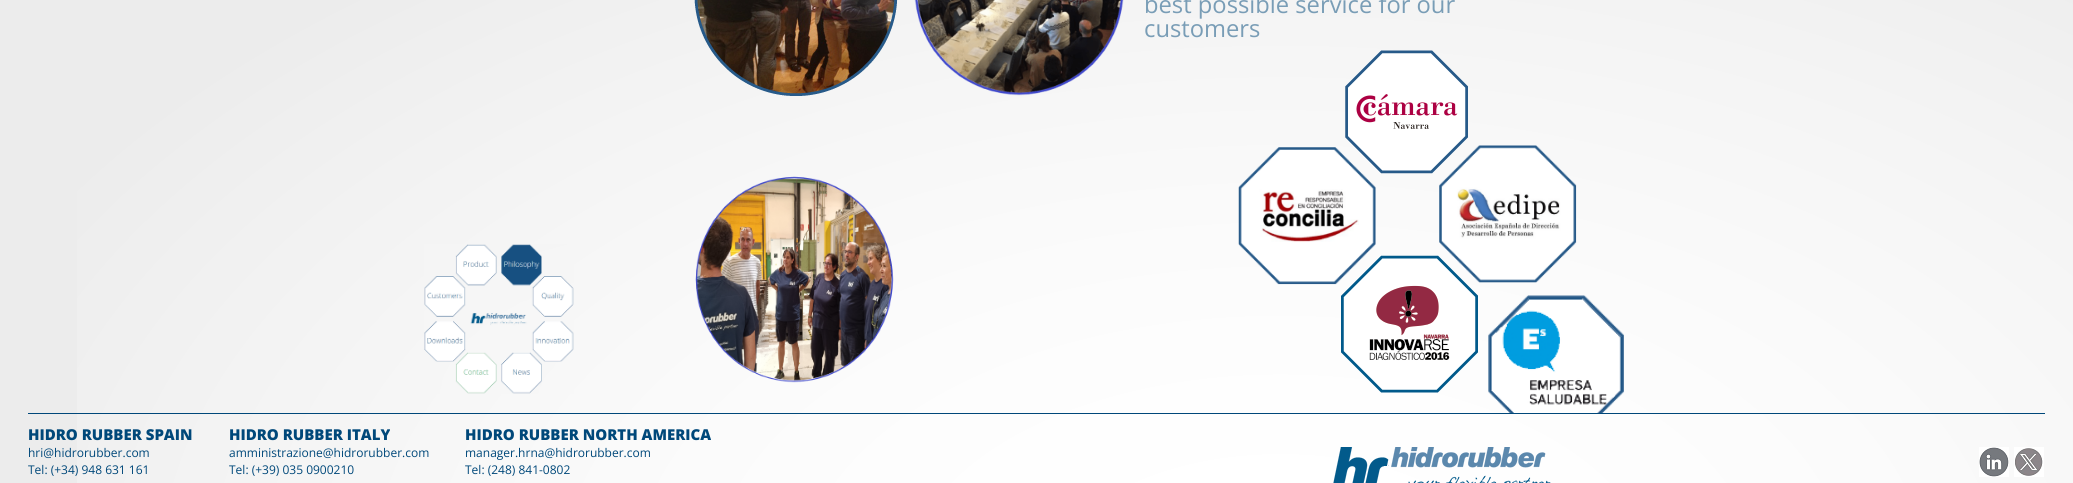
#include <cairo.h>
#include <math.h>
#include <stddef.h>


static void rgb(cairo_t *cr, int r, int g, int b)
{
	cairo_set_source_rgb(cr, r / 255.0, g / 255.0, b / 255.0);
}

static void face(cairo_t *cr, const char *family, double size, int italic, int bold)
{
	cairo_select_font_face(cr, family, italic ? CAIRO_FONT_SLANT_ITALIC : CAIRO_FONT_SLANT_NORMAL,
		bold ? CAIRO_FONT_WEIGHT_BOLD : CAIRO_FONT_WEIGHT_NORMAL);
	cairo_set_font_size(cr, size);
}

static void label(cairo_t *cr, double x, double y, const char *s)
{
	cairo_move_to(cr, x, y);
	cairo_show_text(cr, s);
}

static void rect(cairo_t *cr, double x, double y, double w, double h)
{
	cairo_rectangle(cr, x, y, w, h);
	cairo_fill(cr);
}

static void image(cairo_t *cr, const char *path, double x, double y, double w, double h)
{
	cairo_surface_t *image = cairo_image_surface_create_from_png(path);
	cairo_save(cr);
	cairo_set_source_surface(cr, image, x, y);
	cairo_rectangle(cr, x, y, w, h);
	cairo_fill(cr);
	cairo_restore(cr);
	cairo_surface_destroy(image);
}

static void draw(cairo_t *cr) {
	rgb(cr, 236, 236, 236);
	cairo_paint(cr);
	image(cr, "image0.png", 77, 0, 1996, 483);
	image(cr, "image1.png", 694, 0, 204, 96);
	image(cr, "image2.png", 914, 0, 210, 96);
	face(cr, "Open Sans", 23.75, 0, 0);
	rgb(cr, 121, 157, 182);
	label(cr, 1144, 13, "best possible service for our");
	label(cr, 1144, 37, "customers");
	image(cr, "image3.png", 695, 176, 199, 207);
	image(cr, "image4.png", 1345, 50, 123, 124);
	image(cr, "image5.png", 1238, 147, 138, 138);
	image(cr, "image6.png", 1439, 145, 138, 138);
	image(cr, "image7.png", 1341, 255, 137, 138);
	image(cr, "image8.png", 1488, 295, 136, 118);
	image(cr, "image9.png", 424, 244, 150, 150);
	rgb(cr, 0, 72, 122);
	rect(cr, 28, 413, 2017, 1);
	face(cr, "Open Sans ExtraBold", 15, 0, 0);
	label(cr, 28, 440, "HIDRO RUBBER SPAIN");
	face(cr, "Open Sans", 12, 0, 0);
	label(cr, 28, 457, "hri@hidrorubber.com");
	label(cr, 28, 474, "Tel: (+34) 948 631 161");
	face(cr, "Open Sans ExtraBold", 15, 0, 0);
	label(cr, 229, 440, "HIDRO RUBBER ITALY");
	face(cr, "Open Sans", 12, 0, 0);
	label(cr, 229, 457, "amministrazione@hidrorubber.com");
	label(cr, 229, 474, "Tel: (+39) 035 0900210");
	face(cr, "Open Sans ExtraBold", 15, 0, 0);
	label(cr, 465, 440, "HIDRO RUBBER NORTH AMERICA");
	face(cr, "Open Sans", 12, 0, 0);
	label(cr, 465, 457, "manager.hrna@hidrorubber.com");
	label(cr, 465, 474, "Tel: (248) 841-0802");
	image(cr, "image10.png", 1333, 447, 218, 36);
	image(cr, "image11.png", 1979, 447, 30, 30);
	image(cr, "image12.png", 2014, 447, 30, 30);
}

int main(void) {
	cairo_surface_t *surface = cairo_image_surface_create(CAIRO_FORMAT_RGB24, 2073, 483);
	cairo_t *cr = cairo_create(surface);
	cairo_font_options_t *options = cairo_font_options_create();
	cairo_font_options_set_hint_metrics(options, CAIRO_HINT_METRICS_OFF);
	cairo_font_options_set_hint_style(options, CAIRO_HINT_STYLE_NONE);
	cairo_set_font_options(cr, options);
	cairo_set_miter_limit(cr, 4);
	draw(cr);
	cairo_surface_write_to_png(surface, "render.png");
	cairo_font_options_destroy(options);
	cairo_destroy(cr);
	cairo_surface_destroy(surface);
	return 0;
}
